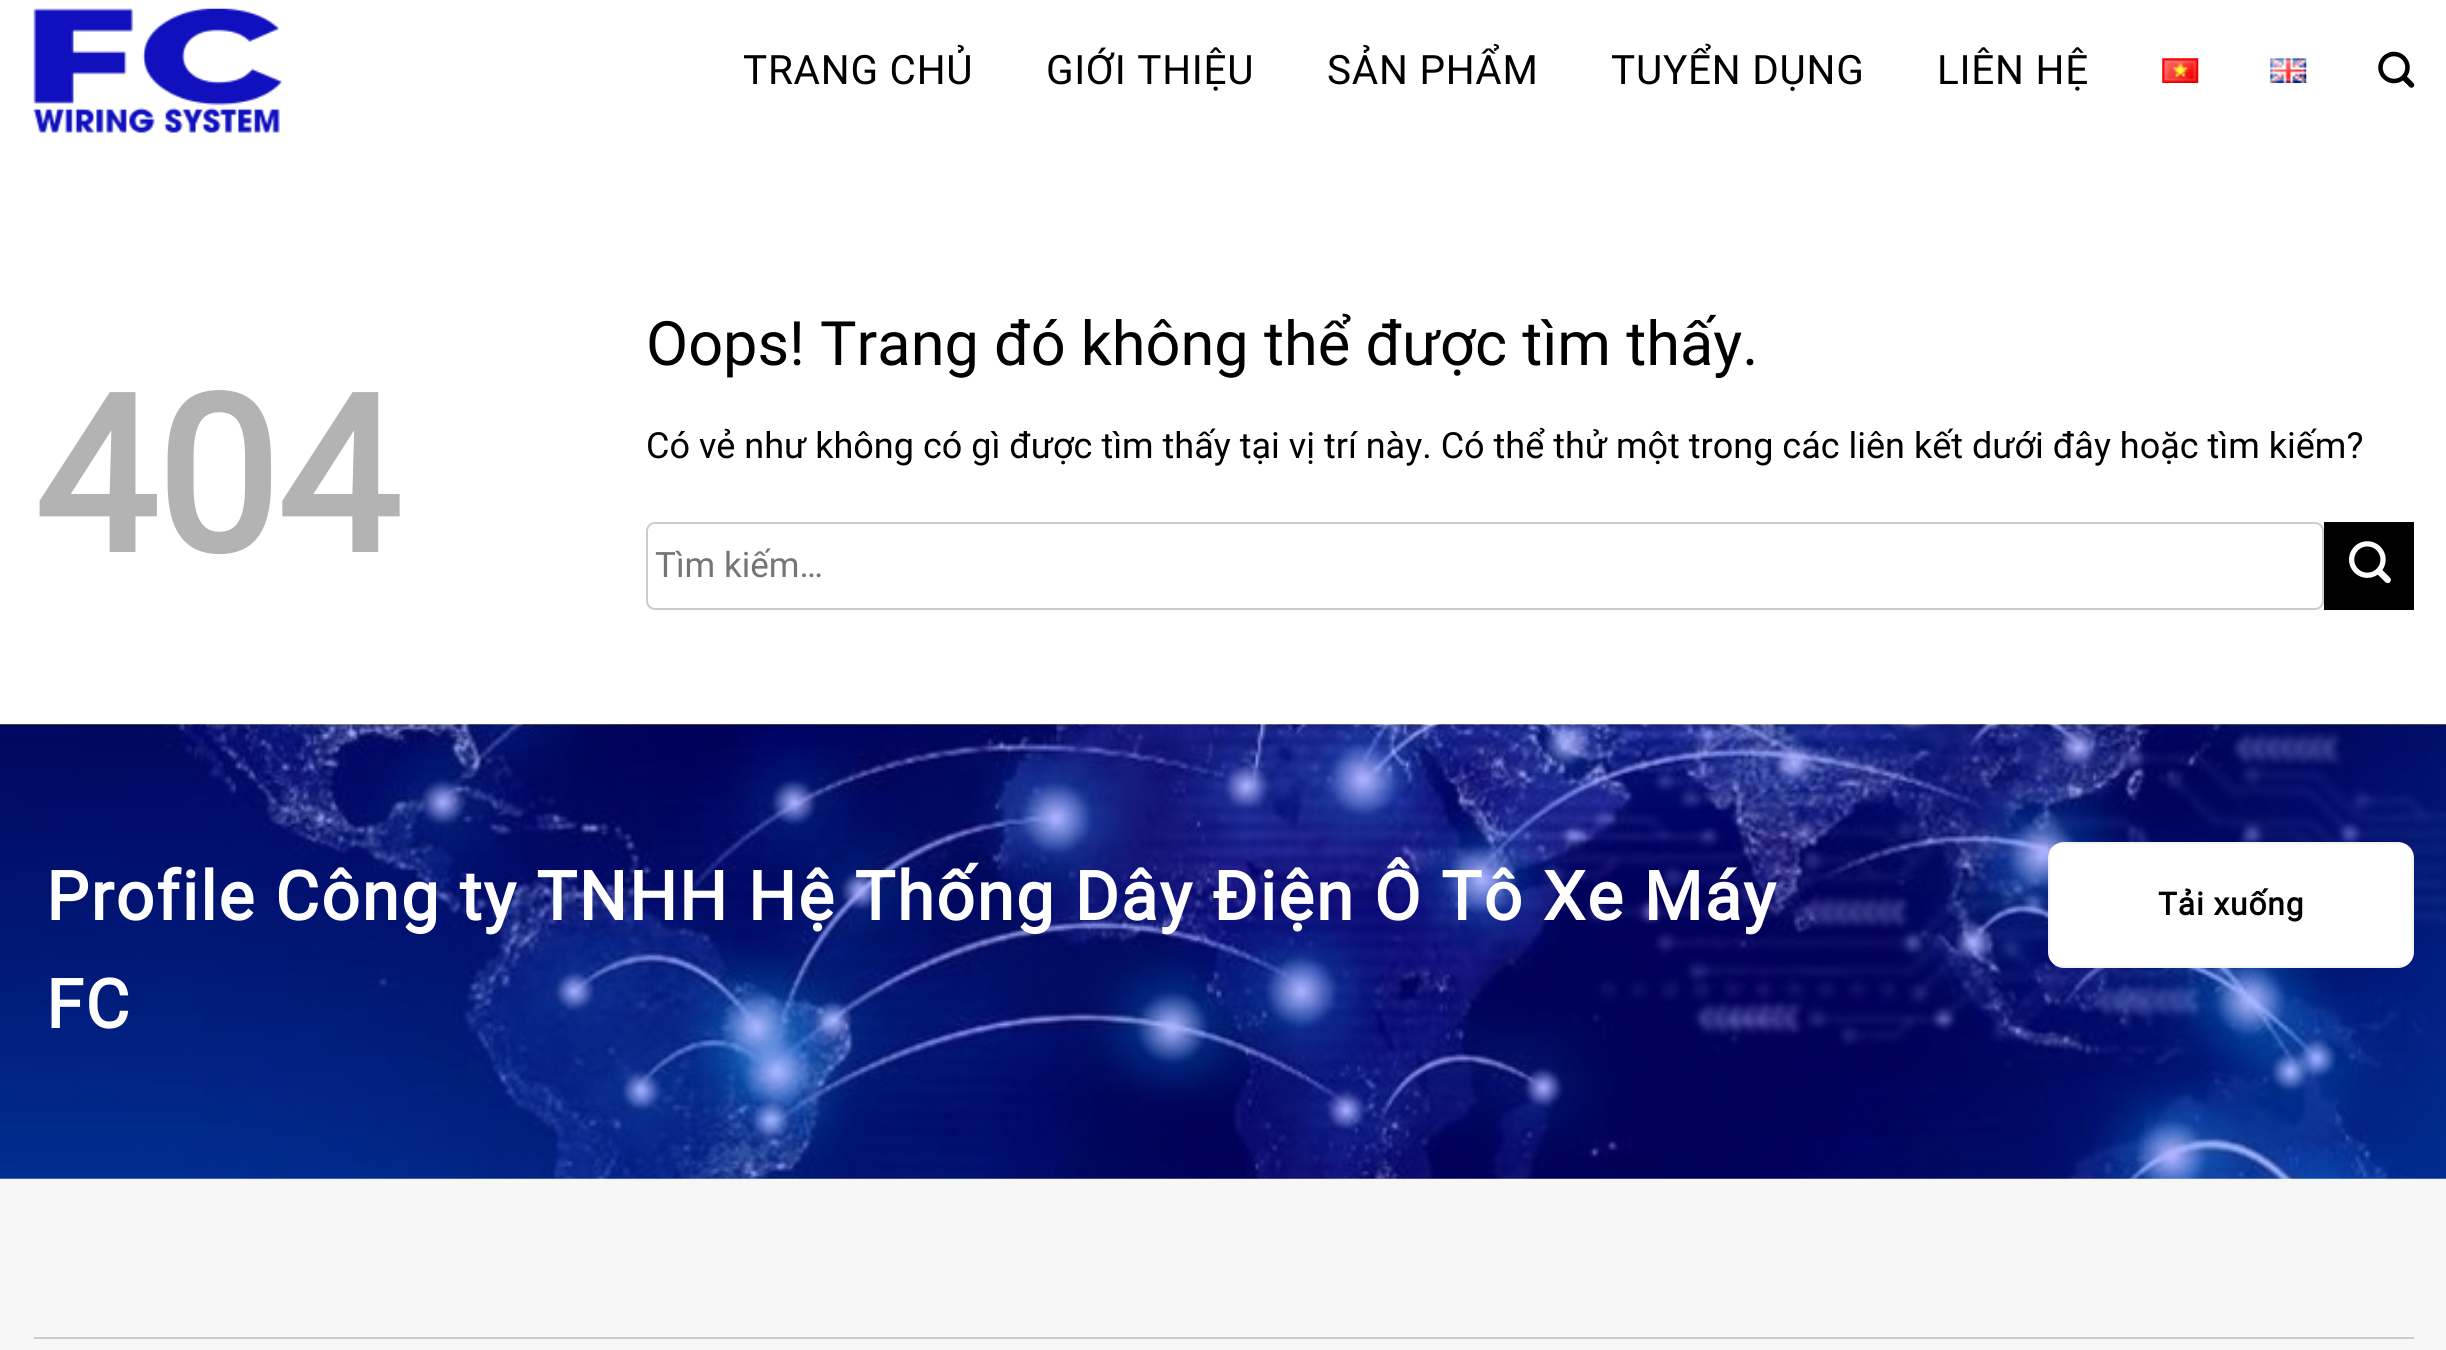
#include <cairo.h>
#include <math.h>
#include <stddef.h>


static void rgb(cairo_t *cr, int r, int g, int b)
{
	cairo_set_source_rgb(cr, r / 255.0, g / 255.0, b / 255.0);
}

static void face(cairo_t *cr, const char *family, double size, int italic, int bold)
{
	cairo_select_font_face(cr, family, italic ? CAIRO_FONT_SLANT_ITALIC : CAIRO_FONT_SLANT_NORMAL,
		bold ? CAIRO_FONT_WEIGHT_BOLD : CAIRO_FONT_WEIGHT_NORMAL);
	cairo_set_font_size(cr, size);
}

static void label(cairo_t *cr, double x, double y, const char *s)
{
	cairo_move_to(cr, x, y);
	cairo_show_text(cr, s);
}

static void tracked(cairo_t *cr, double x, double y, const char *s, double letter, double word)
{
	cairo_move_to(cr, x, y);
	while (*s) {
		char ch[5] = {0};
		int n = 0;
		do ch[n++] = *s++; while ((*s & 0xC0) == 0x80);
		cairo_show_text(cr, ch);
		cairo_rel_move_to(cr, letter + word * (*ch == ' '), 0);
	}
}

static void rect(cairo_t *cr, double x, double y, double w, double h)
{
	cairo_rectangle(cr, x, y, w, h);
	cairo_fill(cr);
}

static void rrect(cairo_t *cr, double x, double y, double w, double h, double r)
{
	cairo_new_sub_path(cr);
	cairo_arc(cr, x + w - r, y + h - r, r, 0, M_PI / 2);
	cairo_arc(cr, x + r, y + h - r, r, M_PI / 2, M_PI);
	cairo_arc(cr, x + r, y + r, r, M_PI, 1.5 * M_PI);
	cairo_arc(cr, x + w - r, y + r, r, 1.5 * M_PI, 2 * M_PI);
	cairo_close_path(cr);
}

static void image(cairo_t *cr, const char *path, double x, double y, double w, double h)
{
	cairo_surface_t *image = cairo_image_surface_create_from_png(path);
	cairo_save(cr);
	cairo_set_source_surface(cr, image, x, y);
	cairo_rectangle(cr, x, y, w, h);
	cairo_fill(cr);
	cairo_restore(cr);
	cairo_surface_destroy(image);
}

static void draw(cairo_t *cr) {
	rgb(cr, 255, 255, 255);
	cairo_paint(cr);
	image(cr, "image0.png", 33, 8, 249, 125);
	face(cr, "Roboto", 40.5, 0, 0);
	rgb(cr, 0, 0, 0);
	tracked(cr, 743, 84, "TRANG CHỦ", 0.75, 0);
	tracked(cr, 1046, 84, "GIỚI THIỆU", 0.75, 0);
	tracked(cr, 1327, 84, "SẢN PHẨM", 0.75, 0);
	tracked(cr, 1611, 84, "TUYỂN DỤNG", 0.75, 0);
	tracked(cr, 1937, 84, "LIÊN HỆ", 0.75, 0);
	image(cr, "image1.png", 2162, 58, 37, 25);
	image(cr, "image2.png", 2270, 58, 37, 25);
	image(cr, "image3.png", 2378, 51, 37, 37);
	face(cr, "Roboto", 216, 0, 1);
	rgb(cr, 179, 179, 179);
	label(cr, 34, 552, "404");
	face(cr, "Roboto", 61.25, 0, 0);
	rgb(cr, 0, 0, 0);
	label(cr, 646, 365, "Oops! Trang đó không thể được tìm thấy.");
	face(cr, "Roboto", 36, 0, 0);
	label(cr, 646, 458, "Có vẻ như không có gì được tìm thấy tại vị trí này. Có thể thử một trong các liên kết dưới đây hoặc tìm kiếm?");
	rrect(cr, 647, 523, 1676, 86, 8);
	rgb(cr, 204, 204, 204);
	cairo_stroke(cr);
	face(cr, "Roboto", 35, 0, 0);
	rgb(cr, 117, 117, 117);
	label(cr, 655, 577, "Tìm kiếm…");
	rgb(cr, 0, 0, 0);
	rect(cr, 2324, 522, 90, 88);
	image(cr, "image4.png", 2349, 541, 42, 43);
	image(cr, "image5.png", 0, 724, 2446, 455);
	face(cr, "Roboto", 67.5, 0, 1);
	rgb(cr, 255, 255, 255);
	tracked(cr, 46, 920, "Profile Công ty TNHH Hệ Thống Dây Điện Ô Tô Xe Máy", 2.02, 0);
	tracked(cr, 46, 1028, "FC", 2.02, 0);
	rrect(cr, 2048, 842, 366, 126, 16);
	cairo_fill(cr);
	cairo_rectangle(cr, 2049, 843, 364, 124);
	cairo_set_source_rgba(cr, 0, 0, 0, 0.05);
	cairo_stroke(cr);
	face(cr, "Roboto", 31.5, 0, 1);
	rgb(cr, 0, 0, 0);
	tracked(cr, 2158, 915, "Tải xuống", 1, 0);
	rgb(cr, 247, 247, 247);
	rect(cr, 0, 1179, 2446, 171);
	rgb(cr, 204, 204, 204);
	rect(cr, 34, 1337, 2380, 2);
}

int main(void) {
	cairo_surface_t *surface = cairo_image_surface_create(CAIRO_FORMAT_RGB24, 2446, 1350);
	cairo_t *cr = cairo_create(surface);
	cairo_font_options_t *options = cairo_font_options_create();
	cairo_font_options_set_hint_metrics(options, CAIRO_HINT_METRICS_OFF);
	cairo_font_options_set_hint_style(options, CAIRO_HINT_STYLE_NONE);
	cairo_set_font_options(cr, options);
	cairo_set_miter_limit(cr, 4);
	draw(cr);
	cairo_surface_write_to_png(surface, "render.png");
	cairo_font_options_destroy(options);
	cairo_destroy(cr);
	cairo_surface_destroy(surface);
	return 0;
}
